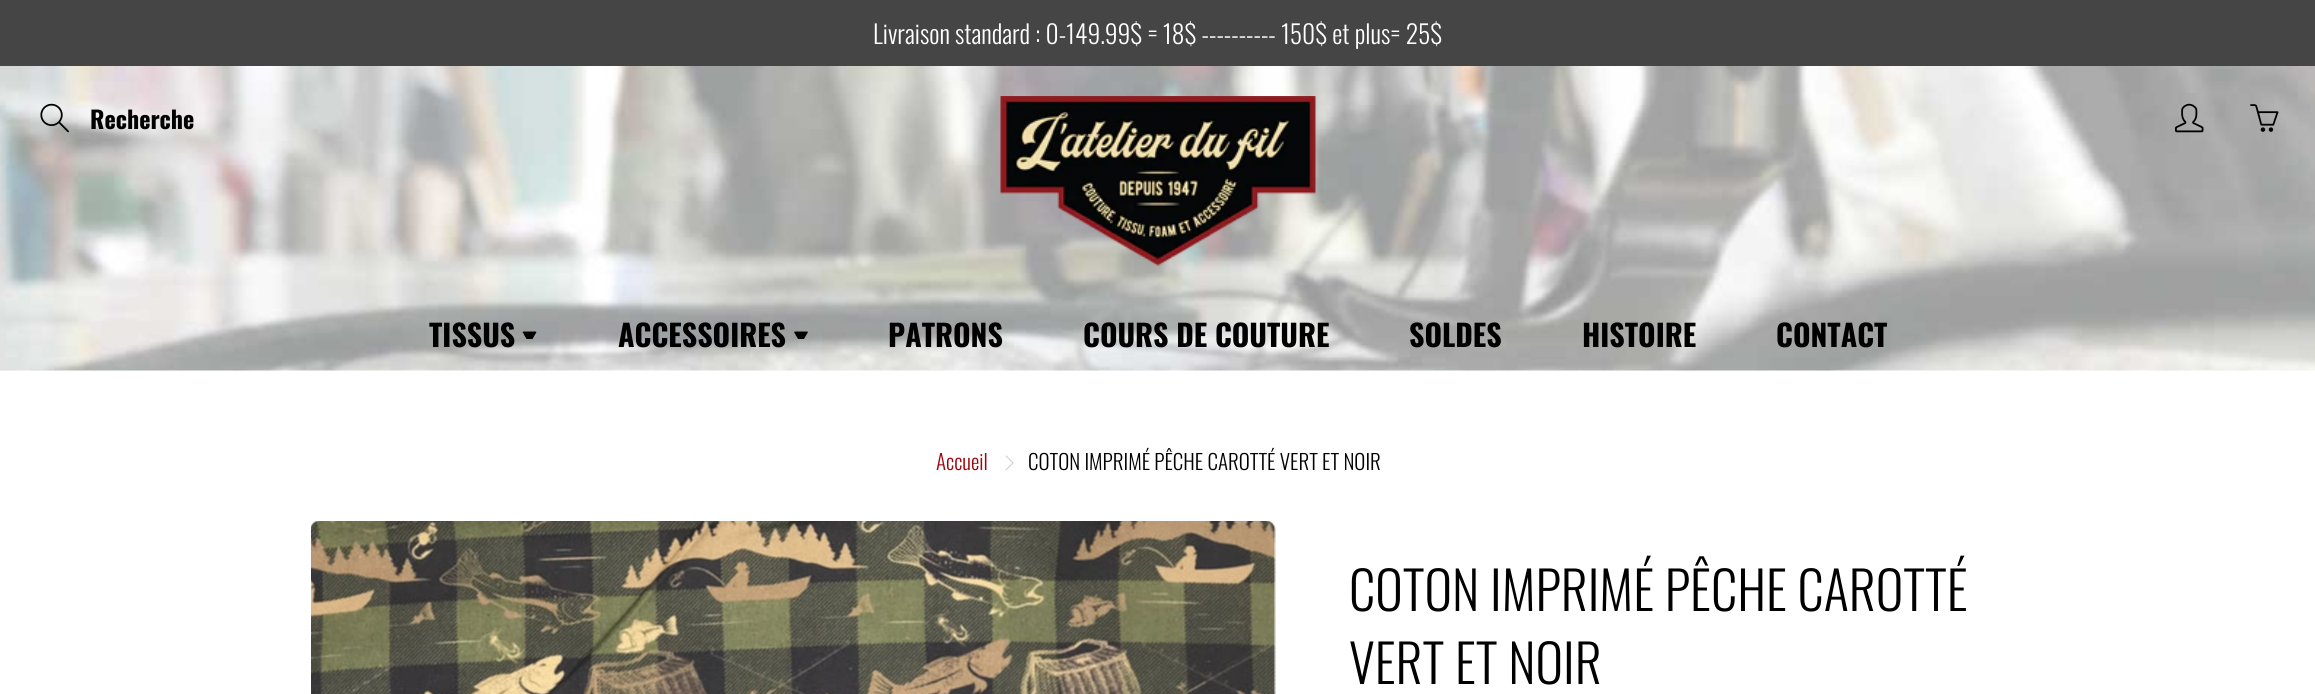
#include <cairo.h>
#include <math.h>
#include <stddef.h>


static void rgb(cairo_t *cr, int r, int g, int b)
{
	cairo_set_source_rgb(cr, r / 255.0, g / 255.0, b / 255.0);
}

static void face(cairo_t *cr, const char *family, double size, int italic, int bold)
{
	cairo_select_font_face(cr, family, italic ? CAIRO_FONT_SLANT_ITALIC : CAIRO_FONT_SLANT_NORMAL,
		bold ? CAIRO_FONT_WEIGHT_BOLD : CAIRO_FONT_WEIGHT_NORMAL);
	cairo_set_font_size(cr, size);
}

static void label(cairo_t *cr, double x, double y, const char *s)
{
	cairo_move_to(cr, x, y);
	cairo_show_text(cr, s);
}

static void rect(cairo_t *cr, double x, double y, double w, double h)
{
	cairo_rectangle(cr, x, y, w, h);
	cairo_fill(cr);
}

static void image(cairo_t *cr, const char *path, double x, double y, double w, double h)
{
	cairo_surface_t *image = cairo_image_surface_create_from_png(path);
	cairo_save(cr);
	cairo_set_source_surface(cr, image, x, y);
	cairo_rectangle(cr, x, y, w, h);
	cairo_fill(cr);
	cairo_restore(cr);
	cairo_surface_destroy(image);
}

static void draw(cairo_t *cr) {
	rgb(cr, 255, 255, 255);
	cairo_paint(cr);
	rgb(cr, 69, 69, 69);
	rect(cr, 0, 0, 2315, 66);
	face(cr, "Oswald Light", 25.5, 0, 0);
	rgb(cr, 255, 255, 255);
	label(cr, 873, 44, "Livraison standard : 0-149.99$ = 18$ ---------- 150$ et plus= 25$");
	image(cr, "image0.png", 0, 66, 2315, 305);
	image(cr, "image1.png", 40, 103, 29, 30);
	face(cr, "Oswald", 24, 0, 1);
	rgb(cr, 0, 0, 0);
	label(cr, 90, 129, "Recherche");
	image(cr, "image2.png", 1000, 96, 316, 170);
	image(cr, "image3.png", 2175, 103, 29, 30);
	image(cr, "image4.png", 2250, 104, 29, 28);
	face(cr, "Oswald", 30, 0, 1);
	label(cr, 429, 347, "TISSUS");
	cairo_new_path(cr);
	cairo_move_to(cr, 523.5, 331.5);
	cairo_line_to(cr, 522.5, 332);
	cairo_line_to(cr, 526.5, 339);
	cairo_line_to(cr, 532.5, 339);
	cairo_line_to(cr, 536.5, 332);
	cairo_line_to(cr, 535.5, 331.5);
	cairo_close_path(cr);
	cairo_fill(cr);
	label(cr, 618, 347, "ACCESSOIRES");
	cairo_new_path(cr);
	cairo_move_to(cr, 795, 331.5);
	cairo_line_to(cr, 794, 332);
	cairo_line_to(cr, 798, 339);
	cairo_line_to(cr, 804, 339);
	cairo_line_to(cr, 808, 332);
	cairo_line_to(cr, 807, 331.5);
	cairo_close_path(cr);
	cairo_fill(cr);
	label(cr, 888, 347, "PATRONS");
	label(cr, 1083, 347, "COURS DE COUTURE");
	label(cr, 1409, 347, "SOLDES");
	label(cr, 1582, 347, "HISTOIRE");
	label(cr, 1776, 347, "CONTACT");
	face(cr, "Oswald Light", 21, 0, 0);
	rgb(cr, 159, 5, 13);
	label(cr, 936, 470, "Accueil");
	image(cr, "image5.png", 1005, 455, 9, 16);
	rgb(cr, 0, 0, 0);
	label(cr, 1028, 470, "COTON IMPRIMÉ PÊCHE CAROTTÉ VERT ET NOIR");
	image(cr, "image6.png", 311, 521, 965, 173);
	face(cr, "Oswald Light", 52.5, 0, 0);
	label(cr, 1349, 611, "COTON IMPRIMÉ PÊCHE CAROTTÉ");
	label(cr, 1349, 684, "VERT ET NOIR");
}

int main(void) {
	cairo_surface_t *surface = cairo_image_surface_create(CAIRO_FORMAT_RGB24, 2315, 694);
	cairo_t *cr = cairo_create(surface);
	cairo_font_options_t *options = cairo_font_options_create();
	cairo_font_options_set_hint_metrics(options, CAIRO_HINT_METRICS_OFF);
	cairo_font_options_set_hint_style(options, CAIRO_HINT_STYLE_NONE);
	cairo_set_font_options(cr, options);
	cairo_set_miter_limit(cr, 4);
	draw(cr);
	cairo_surface_write_to_png(surface, "render.png");
	cairo_font_options_destroy(options);
	cairo_destroy(cr);
	cairo_surface_destroy(surface);
	return 0;
}
